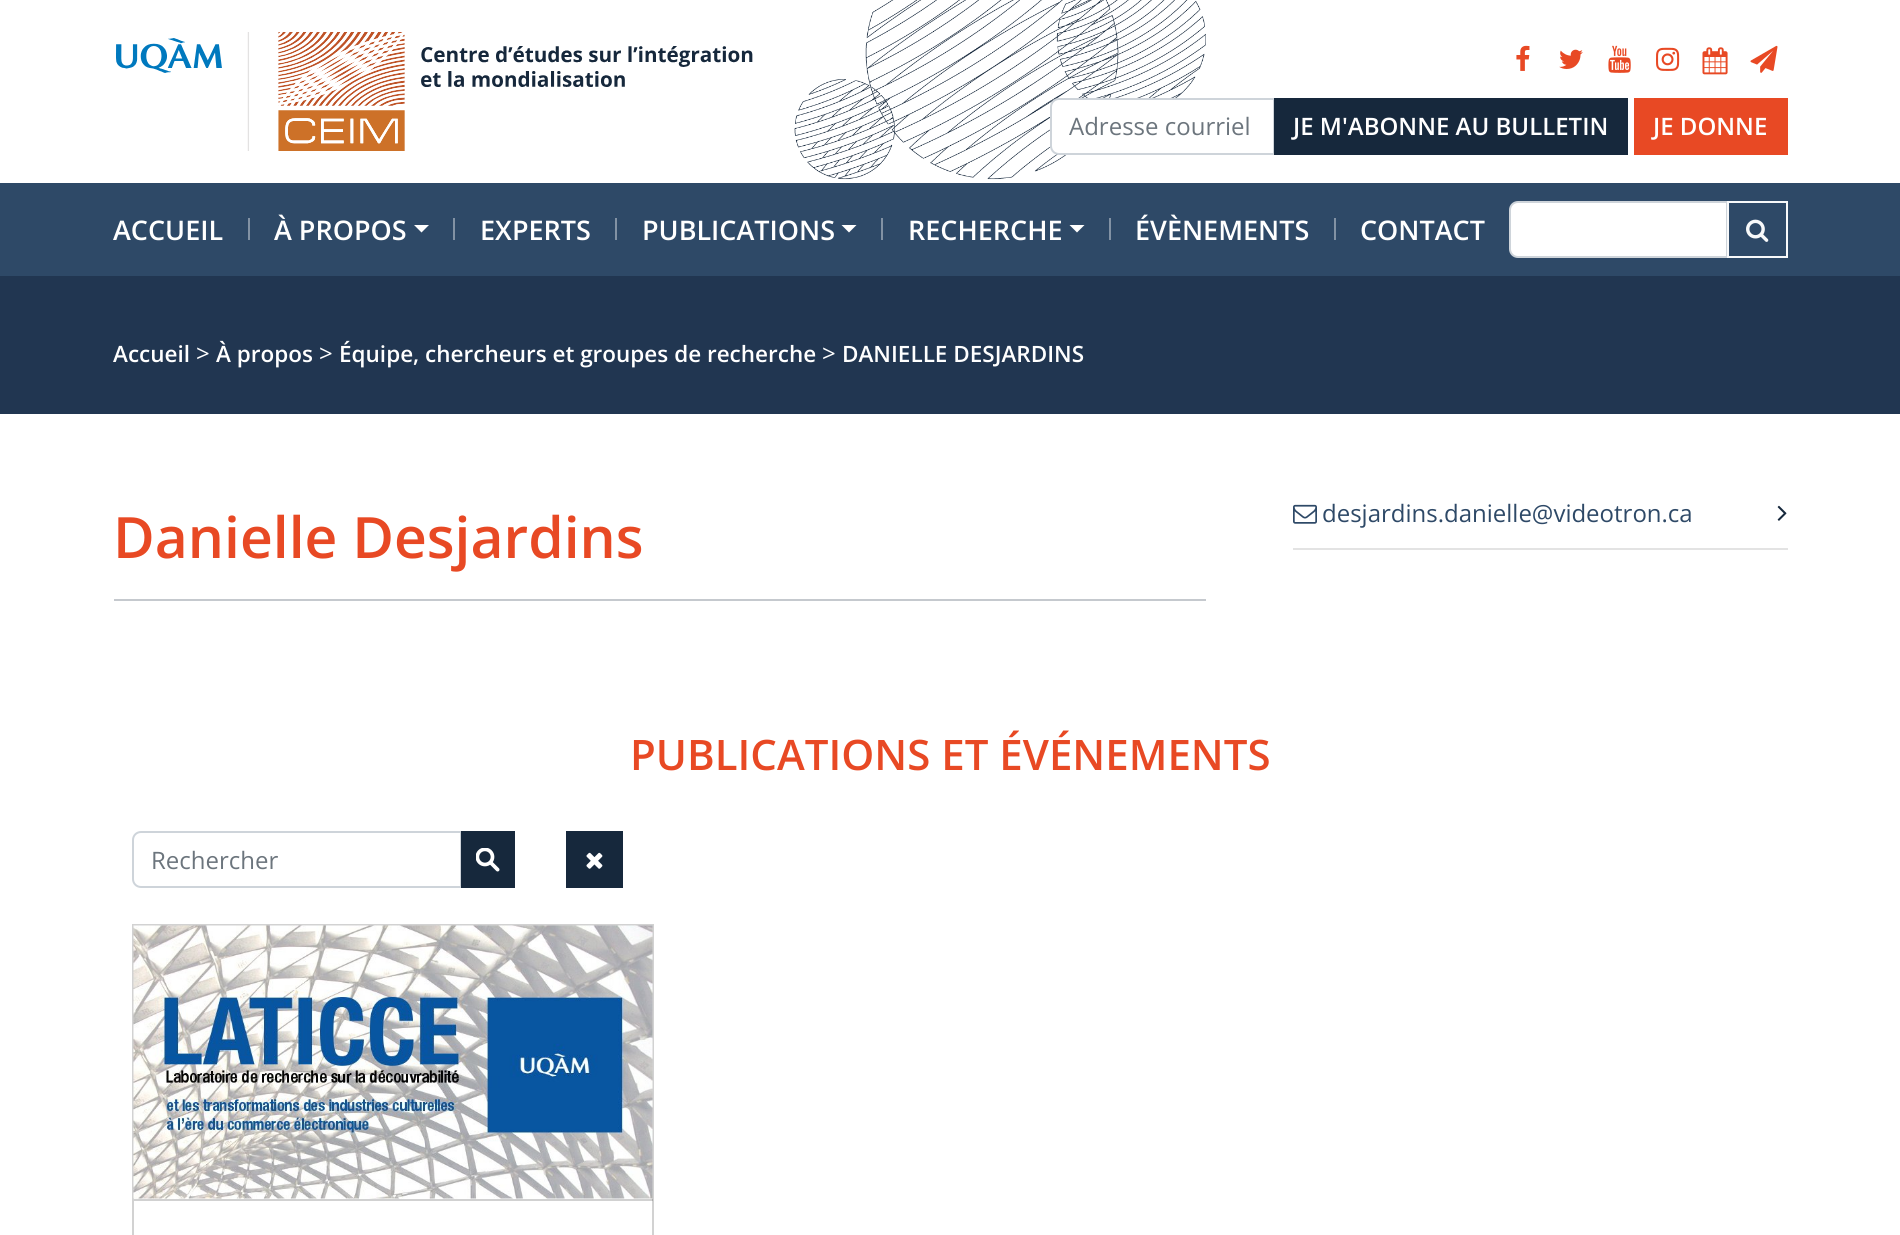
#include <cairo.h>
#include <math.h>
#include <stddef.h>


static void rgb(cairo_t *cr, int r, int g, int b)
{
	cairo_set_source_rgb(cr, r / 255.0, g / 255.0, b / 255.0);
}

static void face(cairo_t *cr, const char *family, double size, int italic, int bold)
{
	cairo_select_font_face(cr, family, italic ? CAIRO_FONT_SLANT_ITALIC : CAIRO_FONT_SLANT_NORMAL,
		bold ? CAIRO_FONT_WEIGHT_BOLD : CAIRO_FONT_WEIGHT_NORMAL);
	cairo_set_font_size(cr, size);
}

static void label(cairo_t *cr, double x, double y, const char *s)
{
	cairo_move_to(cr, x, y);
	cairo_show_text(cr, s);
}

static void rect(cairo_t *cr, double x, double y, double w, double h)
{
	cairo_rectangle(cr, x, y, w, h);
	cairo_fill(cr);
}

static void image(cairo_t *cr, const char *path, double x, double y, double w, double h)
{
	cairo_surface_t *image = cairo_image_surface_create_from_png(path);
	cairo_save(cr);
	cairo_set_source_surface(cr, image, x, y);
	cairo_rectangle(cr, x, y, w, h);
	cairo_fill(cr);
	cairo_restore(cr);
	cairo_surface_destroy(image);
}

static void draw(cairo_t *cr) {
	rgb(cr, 255, 255, 255);
	cairo_paint(cr);
	image(cr, "image0.png", 794, 0, 412, 180);
	image(cr, "image1.png", 116, 32, 637, 119);
	image(cr, "image2.png", 1516, 45, 14, 26);
	image(cr, "image3.png", 1559, 49, 24, 20);
	image(cr, "image4.png", 1608, 45, 23, 28);
	image(cr, "image5.png", 1656, 47, 24, 24);
	image(cr, "image6.png", 1702, 47, 26, 28);
	image(cr, "image7.png", 1750, 45, 28, 28);
	rgb(cr, 255, 255, 255);
	cairo_new_path(cr);
	cairo_move_to(cr, 1059, 99);
	cairo_line_to(cr, 1274, 99);
	cairo_line_to(cr, 1274, 154);
	cairo_line_to(cr, 1059, 154);
	cairo_curve_to(cr, 1054.5, 154, 1051, 150.5, 1051, 146);
	cairo_line_to(cr, 1051, 107);
	cairo_curve_to(cr, 1051, 102.5, 1054.5, 99, 1059, 99);
	cairo_close_path(cr);
	cairo_fill_preserve(cr);
	rgb(cr, 206, 212, 218);
	cairo_stroke(cr);
	face(cr, "Open Sans", 24, 0, 0);
	rgb(cr, 108, 117, 125);
	label(cr, 1069, 135, "Adresse courriel");
	rgb(cr, 22, 40, 60);
	rect(cr, 1274, 98, 354, 57);
	face(cr, "Open Sans SemiBold", 24, 0, 0);
	rgb(cr, 255, 255, 255);
	label(cr, 1293, 135, "JE M'ABONNE AU BULLETIN");
	rgb(cr, 232, 73, 36);
	rect(cr, 1634, 98, 154, 57);
	rgb(cr, 255, 255, 255);
	label(cr, 1653, 135, "JE DONNE");
	rgb(cr, 46, 73, 103);
	rect(cr, 0, 183, 1900, 93);
	face(cr, "Open Sans SemiBold", 27, 0, 0);
	rgb(cr, 255, 255, 255);
	label(cr, 113, 240, "ACCUEIL");
	rgb(cr, 130, 146, 164);
	rect(cr, 248, 218, 2, 22);
	rgb(cr, 255, 255, 255);
	label(cr, 274, 240, "À PROPOS");
	cairo_new_path(cr);
	cairo_move_to(cr, 414, 225);
	cairo_line_to(cr, 429, 225);
	cairo_line_to(cr, 421.5, 232.5);
	cairo_close_path(cr);
	cairo_fill(cr);
	rgb(cr, 130, 146, 164);
	rect(cr, 453, 218, 2, 22);
	rgb(cr, 255, 255, 255);
	label(cr, 480, 240, "EXPERTS");
	rgb(cr, 130, 146, 164);
	rect(cr, 615, 218, 2, 22);
	rgb(cr, 255, 255, 255);
	label(cr, 642, 240, "PUBLICATIONS");
	cairo_new_path(cr);
	cairo_move_to(cr, 841.5, 225);
	cairo_line_to(cr, 856.5, 225);
	cairo_line_to(cr, 849, 232.5);
	cairo_close_path(cr);
	cairo_fill(cr);
	rgb(cr, 130, 146, 164);
	rect(cr, 881, 218, 2, 22);
	rgb(cr, 255, 255, 255);
	label(cr, 908, 240, "RECHERCHE");
	cairo_new_path(cr);
	cairo_move_to(cr, 1069.5, 225);
	cairo_line_to(cr, 1084.5, 225);
	cairo_line_to(cr, 1077, 232.5);
	cairo_close_path(cr);
	cairo_fill(cr);
	rgb(cr, 130, 146, 164);
	rect(cr, 1109, 218, 2, 22);
	rgb(cr, 255, 255, 255);
	label(cr, 1135, 240, "ÉVÈNEMENTS");
	rgb(cr, 130, 146, 164);
	rect(cr, 1334, 218, 2, 22);
	rgb(cr, 255, 255, 255);
	label(cr, 1360, 240, "CONTACT");
	cairo_new_path(cr);
	cairo_move_to(cr, 1518, 202);
	cairo_line_to(cr, 1727, 202);
	cairo_line_to(cr, 1727, 257);
	cairo_line_to(cr, 1518, 257);
	cairo_curve_to(cr, 1513.5, 257, 1510, 253.5, 1510, 249);
	cairo_line_to(cr, 1510, 210);
	cairo_curve_to(cr, 1510, 205.5, 1513.5, 202, 1518, 202);
	cairo_close_path(cr);
	cairo_fill_preserve(cr);
	rgb(cr, 206, 212, 218);
	cairo_stroke(cr);
	cairo_rectangle(cr, 1728, 202, 59, 55);
	rgb(cr, 248, 249, 250);
	cairo_stroke(cr);
	image(cr, "image8.png", 1746, 219, 23, 23);
	rgb(cr, 33, 54, 81);
	rect(cr, 0, 276, 1900, 138);
	face(cr, "Open Sans SemiBold", 22.5, 0, 0);
	rgb(cr, 255, 255, 255);
	label(cr, 113, 362, "Accueil");
	face(cr, "Open Sans", 24, 0, 0);
	label(cr, 196, 362, ">");
	face(cr, "Open Sans SemiBold", 22.5, 0, 0);
	label(cr, 216, 362, "À propos");
	face(cr, "Open Sans", 24, 0, 0);
	label(cr, 319, 362, ">");
	face(cr, "Open Sans SemiBold", 22.5, 0, 0);
	label(cr, 339, 362, "Équipe, chercheurs et groupes de recherche");
	face(cr, "Open Sans", 24, 0, 0);
	label(cr, 822, 362, ">");
	face(cr, "Open Sans SemiBold", 22.5, 0, 0);
	label(cr, 842, 362, "DANIELLE DESJARDINS");
	face(cr, "Open Sans SemiBold", 57, 0, 0);
	rgb(cr, 232, 73, 36);
	label(cr, 113, 558, "Danielle Desjardins");
	rgb(cr, 197, 201, 206);
	rect(cr, 114, 599, 1092, 2);
	rgb(cr, 227, 227, 227);
	rect(cr, 1293, 548, 495, 2);
	image(cr, "image9.png", 1293, 504, 24, 20);
	face(cr, "Open Sans", 24, 0, 0);
	rgb(cr, 46, 73, 103);
	label(cr, 1322, 522, "desjardins.danielle@videotron.ca");
	image(cr, "image10.png", 1777, 505, 10, 16);
	face(cr, "Open Sans SemiBold", 42, 0, 0);
	rgb(cr, 232, 73, 36);
	label(cr, 630, 770, "PUBLICATIONS ET ÉVÉNEMENTS");
	cairo_new_path(cr);
	cairo_move_to(cr, 141, 832);
	cairo_line_to(cr, 461, 832);
	cairo_line_to(cr, 461, 887);
	cairo_line_to(cr, 141, 887);
	cairo_curve_to(cr, 136.5, 887, 133, 883.5, 133, 879);
	cairo_line_to(cr, 133, 840);
	cairo_curve_to(cr, 133, 835.5, 136.5, 832, 141, 832);
	cairo_close_path(cr);
	rgb(cr, 206, 212, 218);
	cairo_stroke(cr);
	face(cr, "Open Sans", 24, 0, 0);
	rgb(cr, 108, 117, 125);
	label(cr, 151, 869, "Rechercher");
	rgb(cr, 22, 40, 60);
	rect(cr, 461, 831, 54, 57);
	image(cr, "image11.png", 476, 848, 24, 24);
	rect(cr, 566, 831, 57, 57);
	image(cr, "image12.png", 586, 852, 17, 17);
	cairo_rectangle(cr, 133, 925, 520, 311);
	rgb(cr, 210, 210, 210);
	cairo_stroke(cr);
	image(cr, "image13.png", 133, 925, 520, 274);
	cairo_set_source_rgba(cr, 0, 0, 0, 0.18);
	rect(cr, 134, 1199, 519, 2);
}

int main(void) {
	cairo_surface_t *surface = cairo_image_surface_create(CAIRO_FORMAT_RGB24, 1900, 1235);
	cairo_t *cr = cairo_create(surface);
	cairo_font_options_t *options = cairo_font_options_create();
	cairo_font_options_set_hint_metrics(options, CAIRO_HINT_METRICS_OFF);
	cairo_font_options_set_hint_style(options, CAIRO_HINT_STYLE_NONE);
	cairo_set_font_options(cr, options);
	cairo_set_miter_limit(cr, 4);
	draw(cr);
	cairo_surface_write_to_png(surface, "render.png");
	cairo_font_options_destroy(options);
	cairo_destroy(cr);
	cairo_surface_destroy(surface);
	return 0;
}
